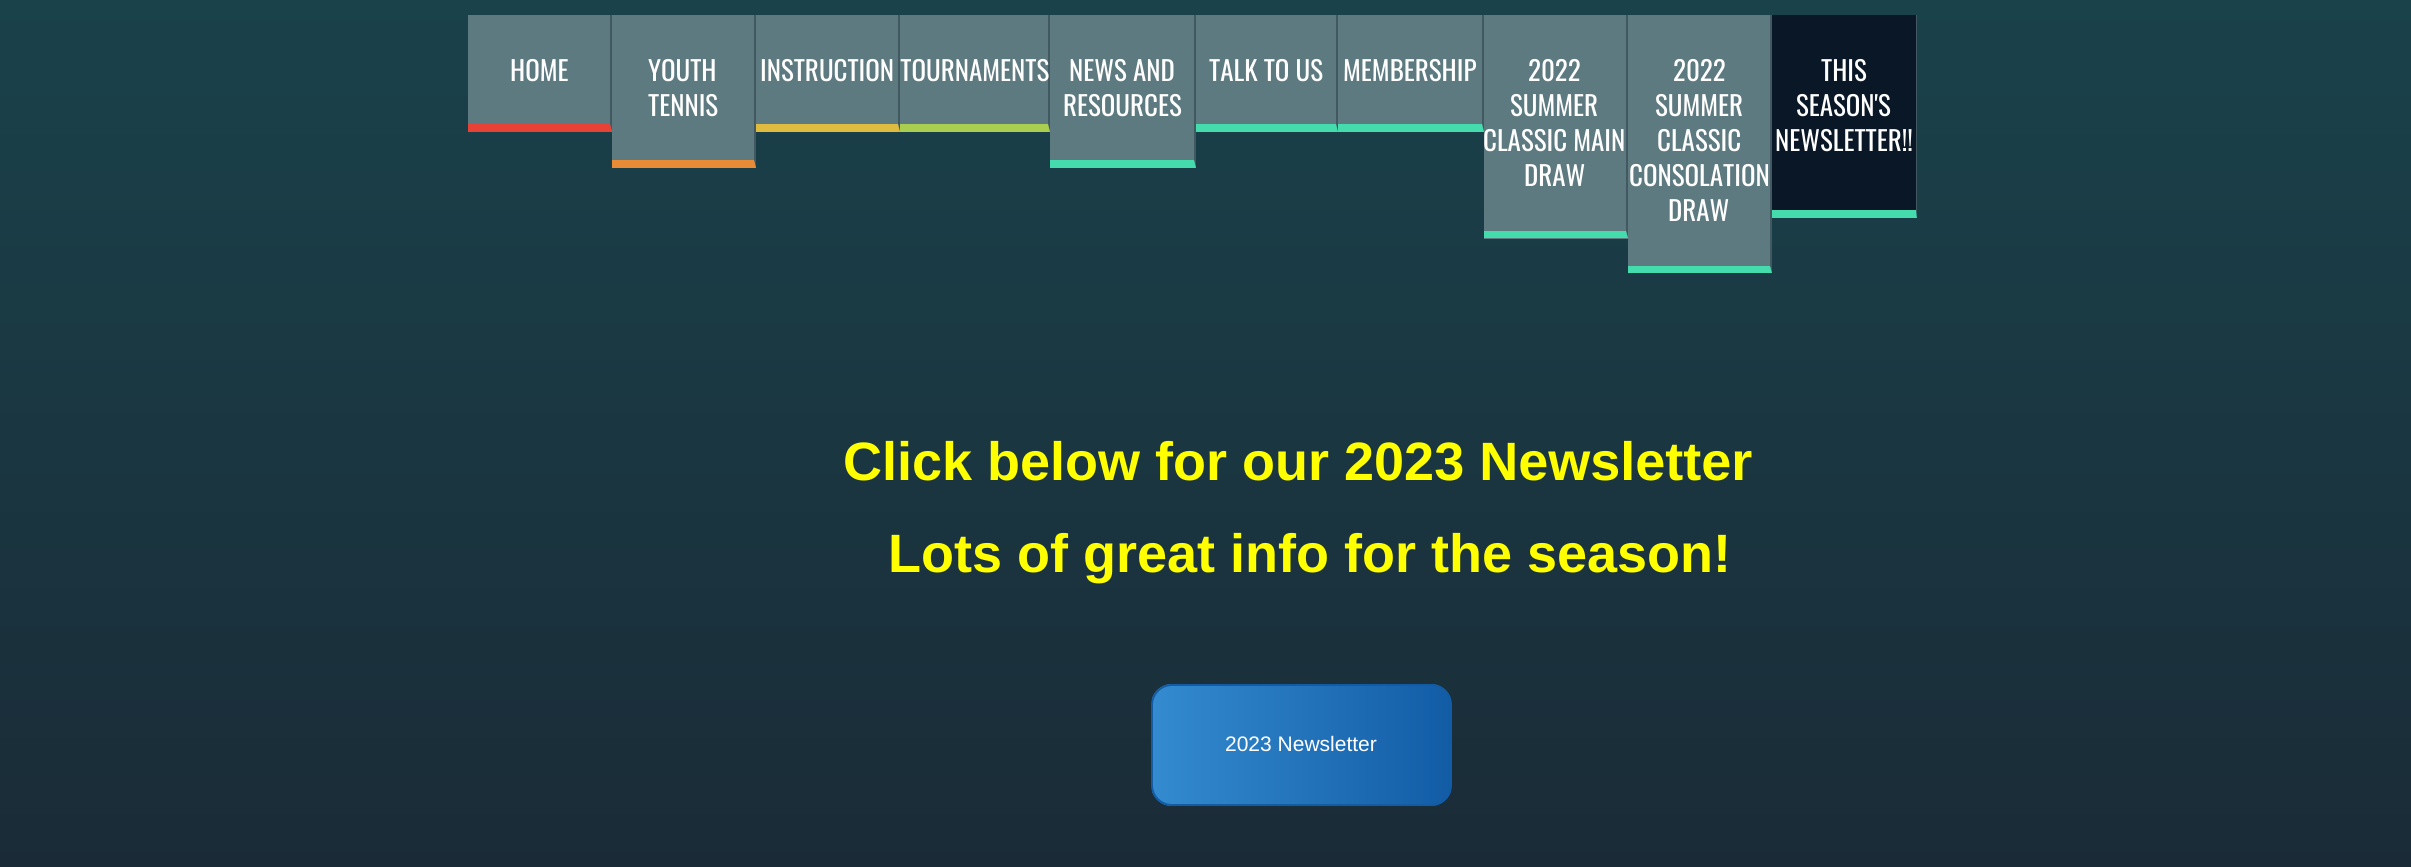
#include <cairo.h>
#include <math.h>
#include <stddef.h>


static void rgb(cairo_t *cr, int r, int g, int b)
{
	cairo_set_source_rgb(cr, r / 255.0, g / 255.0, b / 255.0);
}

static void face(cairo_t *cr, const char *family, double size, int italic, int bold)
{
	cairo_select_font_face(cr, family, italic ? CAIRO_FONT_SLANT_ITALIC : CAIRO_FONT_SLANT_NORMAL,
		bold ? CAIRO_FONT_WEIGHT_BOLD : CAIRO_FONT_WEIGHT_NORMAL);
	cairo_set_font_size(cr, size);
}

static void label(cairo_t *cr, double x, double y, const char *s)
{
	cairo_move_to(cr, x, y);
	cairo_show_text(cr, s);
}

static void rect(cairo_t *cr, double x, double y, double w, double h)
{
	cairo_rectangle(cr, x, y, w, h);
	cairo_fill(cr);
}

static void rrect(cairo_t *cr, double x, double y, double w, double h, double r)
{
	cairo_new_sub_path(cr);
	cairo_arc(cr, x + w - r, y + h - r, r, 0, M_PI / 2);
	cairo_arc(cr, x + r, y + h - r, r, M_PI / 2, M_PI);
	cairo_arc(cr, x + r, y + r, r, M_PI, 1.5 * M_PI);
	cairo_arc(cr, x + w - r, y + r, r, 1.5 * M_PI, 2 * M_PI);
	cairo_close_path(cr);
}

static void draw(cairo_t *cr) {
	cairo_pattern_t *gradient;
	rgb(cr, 255, 255, 255);
	cairo_paint(cr);
	gradient = cairo_pattern_create_linear(1206, 0, 1206, 867);
	cairo_pattern_add_color_stop_rgba(gradient, 0, 0.102, 0.259, 0.294, 1);
	cairo_pattern_add_color_stop_rgba(gradient, 1, 0.102, 0.169, 0.216, 1);
	cairo_set_source(cr, gradient);
	cairo_pattern_destroy(gradient);
	rect(cr, 0, 0, 2411, 867);
	rgb(cr, 94, 122, 129);
	rect(cr, 468, 15, 144, 117);
	rgb(cr, 66, 89, 98);
	cairo_new_path(cr);
	cairo_move_to(cr, 612, 15);
	cairo_line_to(cr, 612, 132);
	cairo_line_to(cr, 610, 124);
	cairo_line_to(cr, 610, 15);
	cairo_close_path(cr);
	cairo_fill(cr);
	rgb(cr, 232, 66, 55);
	cairo_new_path(cr);
	cairo_move_to(cr, 612, 132);
	cairo_line_to(cr, 468, 132);
	cairo_line_to(cr, 468, 124);
	cairo_line_to(cr, 610, 124);
	cairo_close_path(cr);
	cairo_fill(cr);
	face(cr, "Oswald", 27, 0, 0);
	rgb(cr, 255, 255, 255);
	label(cr, 510, 81, "HOME");
	rgb(cr, 94, 122, 129);
	rect(cr, 612, 15, 144, 153);
	rgb(cr, 66, 89, 98);
	cairo_new_path(cr);
	cairo_move_to(cr, 756, 15);
	cairo_line_to(cr, 756, 168);
	cairo_line_to(cr, 754, 160);
	cairo_line_to(cr, 754, 15);
	cairo_close_path(cr);
	cairo_fill(cr);
	rgb(cr, 232, 139, 55);
	cairo_new_path(cr);
	cairo_move_to(cr, 756, 168);
	cairo_line_to(cr, 612, 168);
	cairo_line_to(cr, 612, 160);
	cairo_line_to(cr, 754, 160);
	cairo_close_path(cr);
	cairo_fill(cr);
	rgb(cr, 255, 255, 255);
	label(cr, 648, 81, "YOUTH");
	label(cr, 648, 116, "TENNIS");
	rgb(cr, 94, 122, 129);
	rect(cr, 756, 15, 294, 117);
	rgb(cr, 66, 89, 98);
	cairo_new_path(cr);
	cairo_move_to(cr, 1050, 15);
	cairo_line_to(cr, 1050, 132);
	cairo_line_to(cr, 1048, 124);
	cairo_line_to(cr, 1048, 15);
	cairo_close_path(cr);
	cairo_fill(cr);
	rgb(cr, 170, 206, 80);
	cairo_new_path(cr);
	cairo_move_to(cr, 1050, 132);
	cairo_line_to(cr, 900, 132);
	cairo_line_to(cr, 900, 124);
	cairo_line_to(cr, 1048, 124);
	cairo_close_path(cr);
	cairo_fill(cr);
	rgb(cr, 66, 89, 98);
	cairo_new_path(cr);
	cairo_move_to(cr, 900, 15);
	cairo_line_to(cr, 900, 132);
	cairo_line_to(cr, 898, 124);
	cairo_line_to(cr, 898, 15);
	cairo_close_path(cr);
	cairo_fill(cr);
	rgb(cr, 223, 187, 63);
	cairo_new_path(cr);
	cairo_move_to(cr, 900, 132);
	cairo_line_to(cr, 756, 132);
	cairo_line_to(cr, 756, 124);
	cairo_line_to(cr, 898, 124);
	cairo_close_path(cr);
	cairo_fill(cr);
	rgb(cr, 255, 255, 255);
	label(cr, 760, 81, "INSTRUCTION TOURNAMENTS");
	rgb(cr, 94, 122, 129);
	rect(cr, 1050, 15, 146, 153);
	rgb(cr, 66, 89, 98);
	cairo_new_path(cr);
	cairo_move_to(cr, 1196, 15);
	cairo_line_to(cr, 1196, 168);
	cairo_line_to(cr, 1194, 160);
	cairo_line_to(cr, 1194, 15);
	cairo_close_path(cr);
	cairo_fill(cr);
	rgb(cr, 68, 219, 173);
	cairo_new_path(cr);
	cairo_move_to(cr, 1196, 168);
	cairo_line_to(cr, 1050, 168);
	cairo_line_to(cr, 1050, 160);
	cairo_line_to(cr, 1194, 160);
	cairo_close_path(cr);
	cairo_fill(cr);
	rgb(cr, 255, 255, 255);
	label(cr, 1069, 81, "NEWS AND");
	label(cr, 1063, 116, "RESOURCES");
	rgb(cr, 94, 122, 129);
	rect(cr, 1196, 15, 288, 117);
	rgb(cr, 66, 89, 98);
	cairo_new_path(cr);
	cairo_move_to(cr, 1338, 15);
	cairo_line_to(cr, 1338, 132);
	cairo_line_to(cr, 1336, 124);
	cairo_line_to(cr, 1336, 15);
	cairo_close_path(cr);
	cairo_fill(cr);
	rgb(cr, 68, 219, 173);
	cairo_new_path(cr);
	cairo_move_to(cr, 1338, 132);
	cairo_line_to(cr, 1196, 132);
	cairo_line_to(cr, 1196, 124);
	cairo_line_to(cr, 1336, 124);
	cairo_close_path(cr);
	cairo_fill(cr);
	rgb(cr, 255, 255, 255);
	label(cr, 1209, 81, "TALK TO US");
	rgb(cr, 66, 89, 98);
	cairo_new_path(cr);
	cairo_move_to(cr, 1484, 15);
	cairo_line_to(cr, 1484, 132);
	cairo_line_to(cr, 1482, 124);
	cairo_line_to(cr, 1482, 15);
	cairo_close_path(cr);
	cairo_fill(cr);
	rgb(cr, 68, 219, 173);
	cairo_new_path(cr);
	cairo_move_to(cr, 1484, 132);
	cairo_line_to(cr, 1338, 132);
	cairo_line_to(cr, 1338, 124);
	cairo_line_to(cr, 1482, 124);
	cairo_close_path(cr);
	cairo_fill(cr);
	rgb(cr, 255, 255, 255);
	label(cr, 1343, 81, "MEMBERSHIP");
	rgb(cr, 94, 122, 129);
	rect(cr, 1484, 15, 144, 224);
	rgb(cr, 66, 89, 98);
	cairo_new_path(cr);
	cairo_move_to(cr, 1628, 15);
	cairo_line_to(cr, 1628, 238);
	cairo_line_to(cr, 1626, 231);
	cairo_line_to(cr, 1626, 15);
	cairo_close_path(cr);
	cairo_fill(cr);
	rgb(cr, 68, 219, 173);
	cairo_new_path(cr);
	cairo_move_to(cr, 1628, 238);
	cairo_line_to(cr, 1484, 238);
	cairo_line_to(cr, 1484, 231);
	cairo_line_to(cr, 1626, 231);
	cairo_close_path(cr);
	cairo_fill(cr);
	rgb(cr, 255, 255, 255);
	label(cr, 1528, 81, "2022");
	label(cr, 1510, 116, "SUMMER");
	label(cr, 1483, 151, "CLASSIC MAIN");
	label(cr, 1524, 186, "DRAW");
	rgb(cr, 94, 122, 129);
	rect(cr, 1628, 15, 144, 258);
	rgb(cr, 66, 89, 98);
	cairo_new_path(cr);
	cairo_move_to(cr, 1772, 15);
	cairo_line_to(cr, 1772, 273);
	cairo_line_to(cr, 1770, 266);
	cairo_line_to(cr, 1770, 15);
	cairo_close_path(cr);
	cairo_fill(cr);
	rgb(cr, 68, 219, 173);
	cairo_new_path(cr);
	cairo_move_to(cr, 1772, 273);
	cairo_line_to(cr, 1628, 273);
	cairo_line_to(cr, 1628, 266);
	cairo_line_to(cr, 1770, 266);
	cairo_close_path(cr);
	cairo_fill(cr);
	rgb(cr, 255, 255, 255);
	label(cr, 1673, 81, "2022");
	label(cr, 1655, 116, "SUMMER");
	label(cr, 1657, 151, "CLASSIC");
	label(cr, 1629, 186, "CONSOLATION");
	label(cr, 1668, 221, "DRAW");
	rgb(cr, 9, 23, 38);
	rect(cr, 1772, 15, 145, 203);
	rgb(cr, 66, 89, 98);
	cairo_new_path(cr);
	cairo_move_to(cr, 1917, 15);
	cairo_line_to(cr, 1917, 218);
	cairo_line_to(cr, 1916, 210);
	cairo_line_to(cr, 1916, 15);
	cairo_close_path(cr);
	cairo_fill(cr);
	rgb(cr, 68, 219, 173);
	cairo_new_path(cr);
	cairo_move_to(cr, 1917, 218);
	cairo_line_to(cr, 1772, 218);
	cairo_line_to(cr, 1772, 210);
	cairo_line_to(cr, 1916, 210);
	cairo_close_path(cr);
	cairo_fill(cr);
	rgb(cr, 255, 255, 255);
	label(cr, 1821, 81, "THIS");
	label(cr, 1796, 116, "SEASON'S");
	label(cr, 1775, 151, "NEWSLETTER!!");
	face(cr, "Liberation Sans", 54, 0, 1);
	rgb(cr, 255, 255, 0);
	label(cr, 843, 480, "Click below for our 2023 Newsletter");
	label(cr, 888, 572, "Lots of great info for the season!");
	cairo_save(cr);
	rrect(cr, 1151, 684, 301, 122, 21);
	cairo_clip(cr);
	gradient = cairo_pattern_create_linear(1152, 745, 1451, 745);
	cairo_pattern_add_color_stop_rgba(gradient, 0, 0.204, 0.545, 0.812, 1);
	cairo_pattern_add_color_stop_rgba(gradient, 1, 0.071, 0.361, 0.651, 1);
	cairo_set_source(cr, gradient);
	cairo_pattern_destroy(gradient);
	rect(cr, 1152, 684, 299, 122);
	cairo_restore(cr);
	rrect(cr, 1152, 685, 299, 120, 20);
	rgb(cr, 18, 92, 166);
	cairo_stroke(cr);
	face(cr, "Liberation Sans", 21, 0, 0);
	rgb(cr, 255, 255, 255);
	label(cr, 1225, 751, "2023 Newsletter");
}

int main(void) {
	cairo_surface_t *surface = cairo_image_surface_create(CAIRO_FORMAT_RGB24, 2411, 867);
	cairo_t *cr = cairo_create(surface);
	cairo_font_options_t *options = cairo_font_options_create();
	cairo_font_options_set_hint_metrics(options, CAIRO_HINT_METRICS_OFF);
	cairo_font_options_set_hint_style(options, CAIRO_HINT_STYLE_NONE);
	cairo_set_font_options(cr, options);
	cairo_set_miter_limit(cr, 4);
	draw(cr);
	cairo_surface_write_to_png(surface, "render.png");
	cairo_font_options_destroy(options);
	cairo_destroy(cr);
	cairo_surface_destroy(surface);
	return 0;
}
